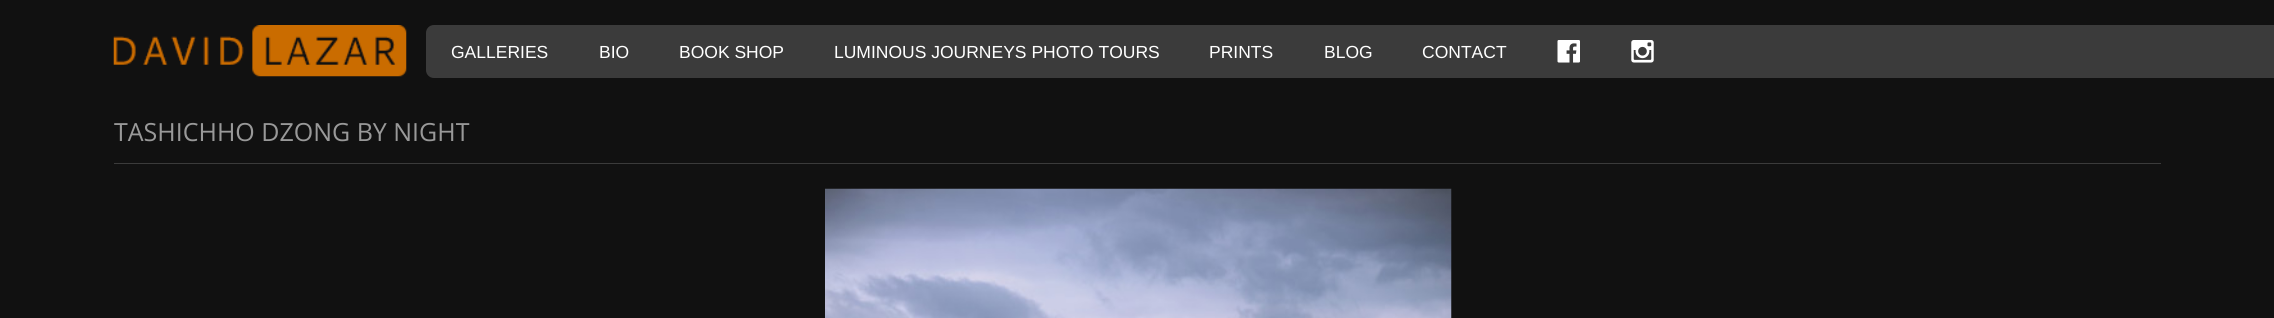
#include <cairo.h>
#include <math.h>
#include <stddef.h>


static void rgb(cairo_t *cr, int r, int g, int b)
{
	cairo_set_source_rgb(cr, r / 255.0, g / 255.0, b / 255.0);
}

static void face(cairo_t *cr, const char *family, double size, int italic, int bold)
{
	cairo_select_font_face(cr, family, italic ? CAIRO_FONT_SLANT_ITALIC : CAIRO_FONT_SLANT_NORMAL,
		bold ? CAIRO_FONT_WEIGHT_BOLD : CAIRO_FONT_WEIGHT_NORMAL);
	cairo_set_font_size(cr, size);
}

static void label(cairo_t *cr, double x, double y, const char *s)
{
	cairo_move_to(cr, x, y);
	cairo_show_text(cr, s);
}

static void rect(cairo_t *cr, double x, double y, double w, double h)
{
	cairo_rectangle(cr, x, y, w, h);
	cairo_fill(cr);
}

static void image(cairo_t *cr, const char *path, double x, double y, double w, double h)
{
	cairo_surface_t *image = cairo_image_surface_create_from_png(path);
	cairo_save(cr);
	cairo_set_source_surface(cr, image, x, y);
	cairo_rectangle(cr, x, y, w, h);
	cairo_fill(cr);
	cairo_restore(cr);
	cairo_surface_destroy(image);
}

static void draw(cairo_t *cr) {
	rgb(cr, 17, 17, 17);
	cairo_paint(cr);
	image(cr, "image0.png", 113, 25, 294, 52);
	rgb(cr, 59, 59, 59);
	cairo_new_path(cr);
	cairo_move_to(cr, 434, 25);
	cairo_line_to(cr, 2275, 25);
	cairo_line_to(cr, 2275, 78);
	cairo_line_to(cr, 434, 78);
	cairo_curve_to(cr, 429.5, 78, 426, 74.5, 426, 70);
	cairo_line_to(cr, 426, 33);
	cairo_curve_to(cr, 426, 28.5, 429.5, 25, 434, 25);
	cairo_close_path(cr);
	cairo_fill(cr);
	face(cr, "Liberation Sans", 17.5, 0, 0);
	rgb(cr, 255, 255, 255);
	label(cr, 451, 58, "GALLERIES");
	label(cr, 599, 58, "BIO");
	label(cr, 679, 58, "BOOK SHOP");
	label(cr, 834, 58, "LUMINOUS JOURNEYS PHOTO TOURS");
	label(cr, 1209, 58, "PRINTS");
	label(cr, 1324, 58, "BLOG");
	label(cr, 1422, 58, "CONTACT");
	image(cr, "image1.png", 1557, 40, 23, 23);
	image(cr, "image2.png", 1631, 40, 23, 23);
	rgb(cr, 59, 59, 59);
	rect(cr, 114, 163, 2047, 1);
	face(cr, "Open Sans", 25, 0, 0);
	rgb(cr, 153, 153, 153);
	label(cr, 114, 141, "TASHICHHO DZONG BY NIGHT");
	image(cr, "image3.png", 825, 188, 627, 130);
}

int main(void) {
	cairo_surface_t *surface = cairo_image_surface_create(CAIRO_FORMAT_RGB24, 2274, 318);
	cairo_t *cr = cairo_create(surface);
	cairo_font_options_t *options = cairo_font_options_create();
	cairo_font_options_set_hint_metrics(options, CAIRO_HINT_METRICS_OFF);
	cairo_font_options_set_hint_style(options, CAIRO_HINT_STYLE_NONE);
	cairo_set_font_options(cr, options);
	cairo_set_miter_limit(cr, 4);
	draw(cr);
	cairo_surface_write_to_png(surface, "render.png");
	cairo_font_options_destroy(options);
	cairo_destroy(cr);
	cairo_surface_destroy(surface);
	return 0;
}
